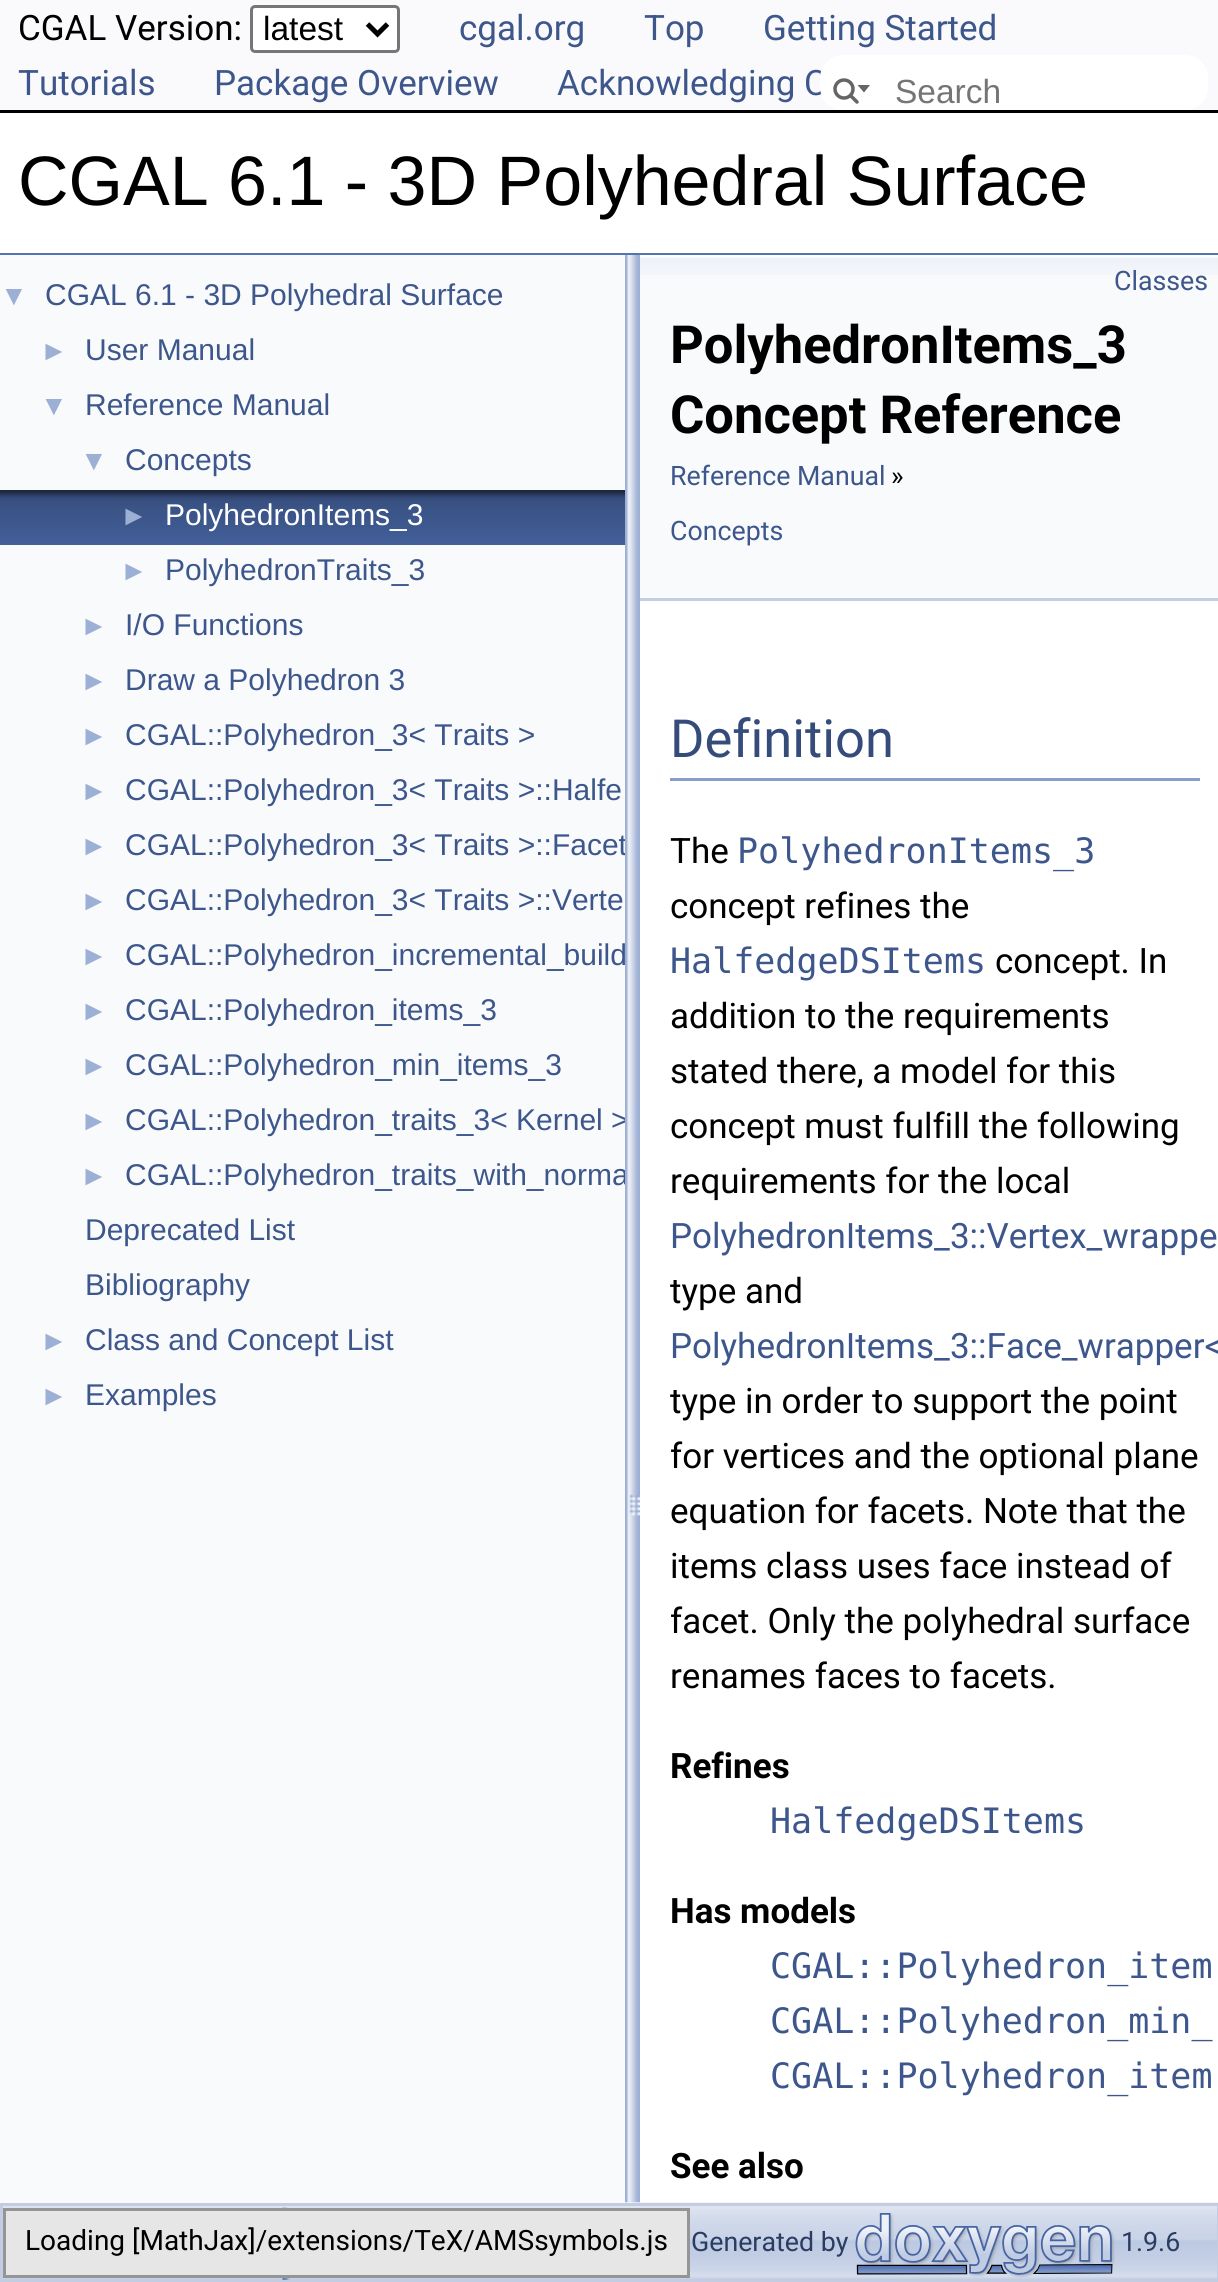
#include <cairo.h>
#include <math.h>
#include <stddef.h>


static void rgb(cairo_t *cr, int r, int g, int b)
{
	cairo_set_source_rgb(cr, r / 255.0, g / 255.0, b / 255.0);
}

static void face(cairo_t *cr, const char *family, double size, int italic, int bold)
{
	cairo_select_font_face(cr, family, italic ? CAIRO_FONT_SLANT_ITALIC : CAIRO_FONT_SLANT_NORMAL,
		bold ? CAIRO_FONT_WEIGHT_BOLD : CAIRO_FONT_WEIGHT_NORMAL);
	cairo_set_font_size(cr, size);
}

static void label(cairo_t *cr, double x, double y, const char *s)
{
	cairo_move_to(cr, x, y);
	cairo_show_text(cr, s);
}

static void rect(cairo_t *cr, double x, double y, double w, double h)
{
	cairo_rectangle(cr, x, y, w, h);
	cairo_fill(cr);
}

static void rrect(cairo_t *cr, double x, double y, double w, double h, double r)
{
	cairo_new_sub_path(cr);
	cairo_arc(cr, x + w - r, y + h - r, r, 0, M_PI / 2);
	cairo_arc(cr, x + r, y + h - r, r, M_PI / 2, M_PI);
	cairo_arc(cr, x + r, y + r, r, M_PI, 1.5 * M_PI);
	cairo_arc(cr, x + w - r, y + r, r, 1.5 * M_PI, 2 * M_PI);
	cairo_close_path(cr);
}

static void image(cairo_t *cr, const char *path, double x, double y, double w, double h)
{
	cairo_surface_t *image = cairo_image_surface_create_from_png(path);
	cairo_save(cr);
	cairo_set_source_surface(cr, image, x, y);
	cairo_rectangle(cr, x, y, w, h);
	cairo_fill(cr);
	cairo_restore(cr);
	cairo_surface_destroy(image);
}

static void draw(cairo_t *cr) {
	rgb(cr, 255, 255, 255);
	cairo_paint(cr);
	rgb(cr, 250, 249, 251);
	rect(cr, 0, 0, 1218, 110);
	rgb(cr, 0, 0, 0);
	rect(cr, 0, 110, 1218, 3);
	face(cr, "Roboto", 35, 0, 0);
	label(cr, 18, 40, "CGAL Version:");
	rgb(cr, 255, 255, 255);
	rrect(cr, 251.5, 6.5, 147, 45, 3.5);
	cairo_fill_preserve(cr);
	rgb(cr, 118, 118, 118);
	cairo_set_line_width(cr, 3);
	cairo_stroke(cr);
	cairo_new_path(cr);
	cairo_move_to(cr, 367.5, 24);
	cairo_line_to(cr, 377.5, 34);
	cairo_line_to(cr, 387.5, 24);
	rgb(cr, 0, 0, 0);
	cairo_set_line_width(cr, 5);
	cairo_stroke(cr);
	face(cr, "Liberation Sans", 33.5, 0, 0);
	label(cr, 263, 40, "latest");
	face(cr, "Roboto", 35, 0, 0);
	rgb(cr, 61, 87, 140);
	label(cr, 459, 40, "cgal.org");
	label(cr, 644, 40, "Top");
	label(cr, 763, 40, "Getting Started");
	label(cr, 18, 95, "Tutorials");
	label(cr, 214, 95, "Package Overview");
	label(cr, 557, 95, "Acknowledging C");
	rgb(cr, 255, 255, 255);
	rrect(cr, 820, 55, 388, 55, 23);
	cairo_fill(cr);
	cairo_arc(cr, 844, 89, 9, 0, 2 * M_PI);
	rgb(cr, 101, 101, 101);
	cairo_set_line_width(cr, 3.5);
	cairo_stroke(cr);
	cairo_new_path(cr);
	cairo_move_to(cr, 857.5, 85);
	cairo_line_to(cr, 864, 92.5);
	cairo_line_to(cr, 870, 85);
	cairo_close_path(cr);
	cairo_fill(cr);
	cairo_new_path(cr);
	cairo_move_to(cr, 850.5, 95.5);
	cairo_line_to(cr, 857, 102);
	cairo_set_line_cap(cr, CAIRO_LINE_CAP_ROUND);
	cairo_stroke(cr);
	face(cr, "Liberation Sans", 33.5, 0, 0);
	rgb(cr, 117, 117, 117);
	label(cr, 895, 103, "Search");
	rgb(cr, 83, 115, 180);
	rect(cr, 0, 253, 1218, 2);
	face(cr, "Liberation Sans", 70, 0, 0);
	rgb(cr, 0, 0, 0);
	label(cr, 18, 205, "CGAL 6.1 - 3D Polyhedral Surface");
	image(cr, "image3.png", 3, 2202, 1215, 78);
	rgb(cr, 249, 250, 252);
	rect(cr, 0, 255, 625, 1948);
	face(cr, "Liberation Sans", 28, 0, 0);
	rgb(cr, 156, 175, 212);
	label(cr, 0, 305, "▼");
	face(cr, "Liberation Sans", 30, 0, 0);
	rgb(cr, 61, 87, 140);
	label(cr, 45, 305, "CGAL 6.1 - 3D Polyhedral Surface");
	face(cr, "Liberation Sans", 28, 0, 0);
	rgb(cr, 156, 175, 212);
	label(cr, 40, 360, "►");
	face(cr, "Liberation Sans", 30, 0, 0);
	rgb(cr, 61, 87, 140);
	label(cr, 85, 360, "User Manual");
	face(cr, "Liberation Sans", 28, 0, 0);
	rgb(cr, 156, 175, 212);
	label(cr, 40, 415, "▼");
	face(cr, "Liberation Sans", 30, 0, 0);
	rgb(cr, 61, 87, 140);
	label(cr, 85, 415, "Reference Manual");
	face(cr, "Liberation Sans", 28, 0, 0);
	rgb(cr, 156, 175, 212);
	label(cr, 80, 470, "▼");
	face(cr, "Liberation Sans", 30, 0, 0);
	rgb(cr, 61, 87, 140);
	label(cr, 125, 470, "Concepts");
	image(cr, "image0.png", 0, 490, 625, 55);
	face(cr, "Liberation Sans", 28, 0, 0);
	rgb(cr, 156, 175, 212);
	label(cr, 120, 525, "►");
	face(cr, "Liberation Sans", 30, 0, 0);
	rgb(cr, 255, 255, 255);
	label(cr, 165, 525, "PolyhedronItems_3");
	face(cr, "Liberation Sans", 28, 0, 0);
	rgb(cr, 156, 175, 212);
	label(cr, 120, 580, "►");
	face(cr, "Liberation Sans", 30, 0, 0);
	rgb(cr, 61, 87, 140);
	label(cr, 165, 580, "PolyhedronTraits_3");
	face(cr, "Liberation Sans", 28, 0, 0);
	rgb(cr, 156, 175, 212);
	label(cr, 80, 635, "►");
	face(cr, "Liberation Sans", 30, 0, 0);
	rgb(cr, 61, 87, 140);
	label(cr, 125, 635, "I/O Functions");
	face(cr, "Liberation Sans", 28, 0, 0);
	rgb(cr, 156, 175, 212);
	label(cr, 80, 690, "►");
	face(cr, "Liberation Sans", 30, 0, 0);
	rgb(cr, 61, 87, 140);
	label(cr, 125, 690, "Draw a Polyhedron 3");
	face(cr, "Liberation Sans", 28, 0, 0);
	rgb(cr, 156, 175, 212);
	label(cr, 80, 745, "►");
	face(cr, "Liberation Sans", 30, 0, 0);
	rgb(cr, 61, 87, 140);
	label(cr, 125, 745, "CGAL::Polyhedron_3< Traits >");
	face(cr, "Liberation Sans", 28, 0, 0);
	rgb(cr, 156, 175, 212);
	label(cr, 80, 800, "►");
	face(cr, "Liberation Sans", 30, 0, 0);
	rgb(cr, 61, 87, 140);
	label(cr, 125, 800, "CGAL::Polyhedron_3< Traits >::Halfe");
	face(cr, "Liberation Sans", 28, 0, 0);
	rgb(cr, 156, 175, 212);
	label(cr, 80, 855, "►");
	face(cr, "Liberation Sans", 30, 0, 0);
	rgb(cr, 61, 87, 140);
	label(cr, 125, 855, "CGAL::Polyhedron_3< Traits >::Facet");
	face(cr, "Liberation Sans", 28, 0, 0);
	rgb(cr, 156, 175, 212);
	label(cr, 80, 910, "►");
	face(cr, "Liberation Sans", 30, 0, 0);
	rgb(cr, 61, 87, 140);
	label(cr, 125, 910, "CGAL::Polyhedron_3< Traits >::Verte");
	face(cr, "Liberation Sans", 28, 0, 0);
	rgb(cr, 156, 175, 212);
	label(cr, 80, 965, "►");
	face(cr, "Liberation Sans", 30, 0, 0);
	rgb(cr, 61, 87, 140);
	label(cr, 125, 965, "CGAL::Polyhedron_incremental_build");
	face(cr, "Liberation Sans", 28, 0, 0);
	rgb(cr, 156, 175, 212);
	label(cr, 80, 1020, "►");
	face(cr, "Liberation Sans", 30, 0, 0);
	rgb(cr, 61, 87, 140);
	label(cr, 125, 1020, "CGAL::Polyhedron_items_3");
	face(cr, "Liberation Sans", 28, 0, 0);
	rgb(cr, 156, 175, 212);
	label(cr, 80, 1075, "►");
	face(cr, "Liberation Sans", 30, 0, 0);
	rgb(cr, 61, 87, 140);
	label(cr, 125, 1075, "CGAL::Polyhedron_min_items_3");
	face(cr, "Liberation Sans", 28, 0, 0);
	rgb(cr, 156, 175, 212);
	label(cr, 80, 1130, "►");
	face(cr, "Liberation Sans", 30, 0, 0);
	rgb(cr, 61, 87, 140);
	label(cr, 125, 1130, "CGAL::Polyhedron_traits_3< Kernel >");
	face(cr, "Liberation Sans", 28, 0, 0);
	rgb(cr, 156, 175, 212);
	label(cr, 80, 1185, "►");
	face(cr, "Liberation Sans", 30, 0, 0);
	rgb(cr, 61, 87, 140);
	label(cr, 125, 1185, "CGAL::Polyhedron_traits_with_norma");
	label(cr, 85, 1240, "Deprecated List");
	label(cr, 85, 1295, "Bibliography");
	face(cr, "Liberation Sans", 28, 0, 0);
	rgb(cr, 156, 175, 212);
	label(cr, 40, 1350, "►");
	face(cr, "Liberation Sans", 30, 0, 0);
	rgb(cr, 61, 87, 140);
	label(cr, 85, 1350, "Class and Concept List");
	face(cr, "Liberation Sans", 28, 0, 0);
	rgb(cr, 156, 175, 212);
	label(cr, 40, 1405, "►");
	face(cr, "Liberation Sans", 30, 0, 0);
	rgb(cr, 61, 87, 140);
	label(cr, 85, 1405, "Examples");
	image(cr, "image1.png", 625, 255, 15, 1948);
	rgb(cr, 249, 250, 252);
	rect(cr, 640, 275, 578, 323);
	image(cr, "image2.png", 640, 255, 578, 20);
	rgb(cr, 196, 207, 229);
	rect(cr, 640, 598, 578, 3);
	face(cr, "Roboto", 26.75, 0, 0);
	rgb(cr, 61, 87, 140);
	label(cr, 1114, 290, "Classes");
	face(cr, "Roboto", 52.5, 0, 1);
	rgb(cr, 0, 0, 0);
	label(cr, 670, 363, "PolyhedronItems_3");
	label(cr, 670, 433, "Concept Reference");
	face(cr, "Roboto", 26.75, 0, 0);
	rgb(cr, 61, 87, 140);
	label(cr, 670, 485, "Reference Manual");
	rgb(cr, 0, 0, 0);
	label(cr, 891, 485, "»");
	rgb(cr, 61, 87, 140);
	label(cr, 670, 540, "Concepts");
	rgb(cr, 135, 158, 203);
	rect(cr, 670, 778, 530, 3);
	face(cr, "Roboto", 52.5, 0, 0);
	rgb(cr, 53, 76, 123);
	label(cr, 670, 757, "Definition");
	face(cr, "Roboto", 35, 0, 0);
	rgb(cr, 0, 0, 0);
	label(cr, 670, 863, "The");
	face(cr, "DejaVu Sans Mono", 35, 0, 0);
	rgb(cr, 61, 87, 140);
	label(cr, 737, 863, "PolyhedronItems_3");
	face(cr, "Roboto", 35, 0, 0);
	rgb(cr, 0, 0, 0);
	label(cr, 670, 918, "concept refines the");
	face(cr, "DejaVu Sans Mono", 35, 0, 0);
	rgb(cr, 61, 87, 140);
	label(cr, 670, 973, "HalfedgeDSItems");
	face(cr, "Roboto", 35, 0, 0);
	rgb(cr, 0, 0, 0);
	label(cr, 995, 973, "concept. In");
	label(cr, 670, 1028, "addition to the requirements");
	label(cr, 670, 1083, "stated there, a model for this");
	label(cr, 670, 1138, "concept must fulfill the following");
	label(cr, 670, 1193, "requirements for the local");
	rgb(cr, 61, 87, 140);
	label(cr, 670, 1248, "PolyhedronItems_3::Vertex_wrappe");
	rgb(cr, 0, 0, 0);
	label(cr, 670, 1303, "type and");
	rgb(cr, 61, 87, 140);
	label(cr, 670, 1358, "PolyhedronItems_3::Face_wrapper<");
	rgb(cr, 0, 0, 0);
	label(cr, 670, 1413, "type in order to support the point");
	label(cr, 670, 1468, "for vertices and the optional plane");
	label(cr, 670, 1523, "equation for facets. Note that the");
	label(cr, 670, 1578, "items class uses face instead of");
	label(cr, 670, 1633, "facet. Only the polyhedral surface");
	label(cr, 670, 1688, "renames faces to facets.");
	face(cr, "Roboto", 35, 0, 1);
	label(cr, 670, 1778, "Refines");
	face(cr, "DejaVu Sans Mono", 35, 0, 0);
	rgb(cr, 61, 87, 140);
	label(cr, 770, 1833, "HalfedgeDSItems");
	face(cr, "Roboto", 35, 0, 1);
	rgb(cr, 0, 0, 0);
	label(cr, 670, 1923, "Has models");
	face(cr, "DejaVu Sans Mono", 35, 0, 0);
	rgb(cr, 61, 87, 140);
	label(cr, 770, 1978, "CGAL::Polyhedron_item");
	label(cr, 770, 2033, "CGAL::Polyhedron_min_");
	label(cr, 770, 2088, "CGAL::Polyhedron_item");
	face(cr, "Roboto", 35, 0, 1);
	rgb(cr, 0, 0, 0);
	label(cr, 670, 2178, "See also");
	cairo_rectangle(cr, 1.5, 2204.5, 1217, 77);
	rgb(cr, 194, 205, 228);
	cairo_set_line_width(cr, 3);
	cairo_set_line_cap(cr, CAIRO_LINE_CAP_BUTT);
	cairo_stroke(cr);
	image(cr, "image4.png", 282, 2207, 9, 73);
	rgb(cr, 230, 230, 230);
	cairo_rectangle(cr, 4.5, 2209.5, 684, 67);
	cairo_fill_preserve(cr);
	rgb(cr, 149, 149, 149);
	cairo_stroke(cr);
	face(cr, "Roboto", 28, 0, 0);
	rgb(cr, 0, 0, 0);
	label(cr, 25, 2250, "Loading [MathJax]/extensions/TeX/AMSsymbols.js");
	face(cr, "Roboto", 26.75, 0, 0);
	rgb(cr, 42, 61, 97);
	label(cr, 691, 2251, "Generated by");
	image(cr, "image5.png", 855, 2213, 260, 65);
	label(cr, 1121, 2251, "1.9.6");
}

int main(void) {
	cairo_surface_t *surface = cairo_image_surface_create(CAIRO_FORMAT_RGB24, 1218, 2282);
	cairo_t *cr = cairo_create(surface);
	cairo_font_options_t *options = cairo_font_options_create();
	cairo_font_options_set_hint_metrics(options, CAIRO_HINT_METRICS_OFF);
	cairo_font_options_set_hint_style(options, CAIRO_HINT_STYLE_NONE);
	cairo_set_font_options(cr, options);
	cairo_set_miter_limit(cr, 4);
	draw(cr);
	cairo_surface_write_to_png(surface, "render.png");
	cairo_font_options_destroy(options);
	cairo_destroy(cr);
	cairo_surface_destroy(surface);
	return 0;
}
